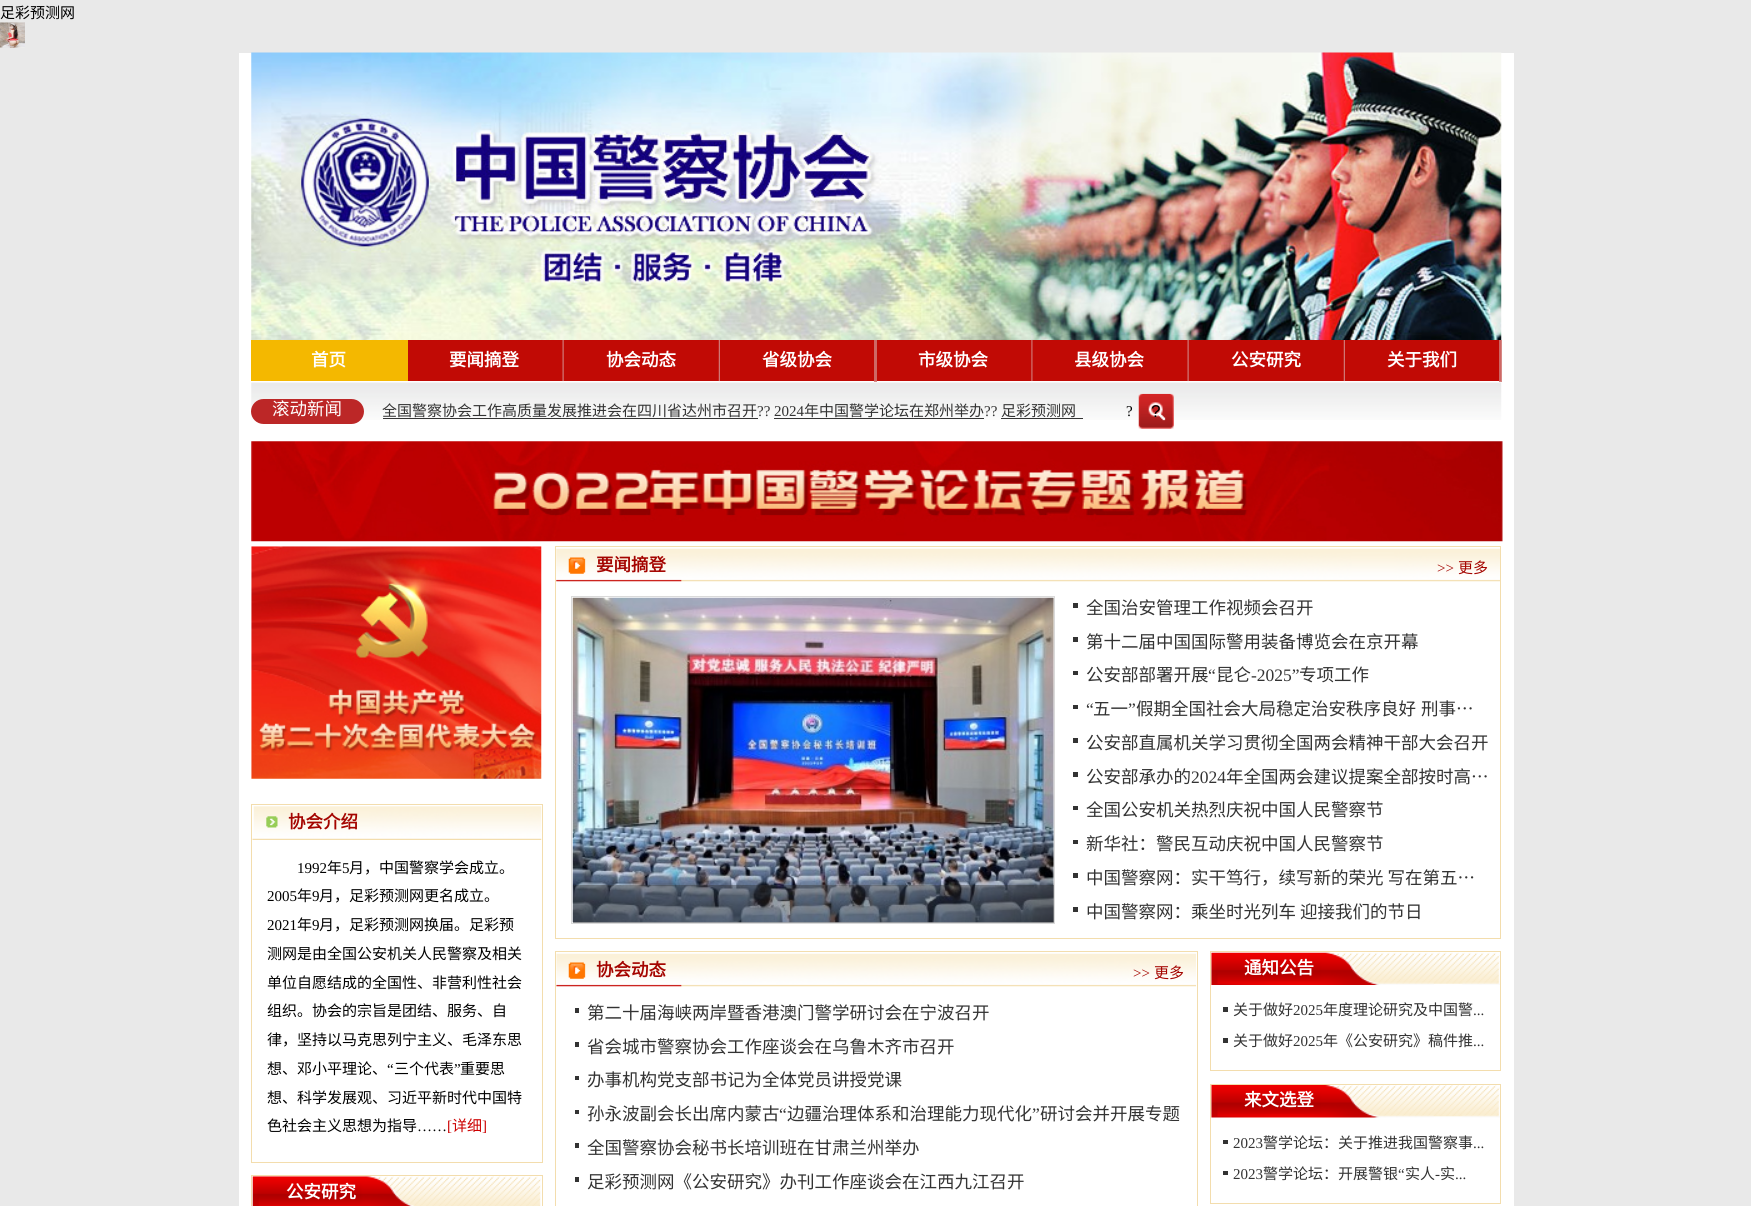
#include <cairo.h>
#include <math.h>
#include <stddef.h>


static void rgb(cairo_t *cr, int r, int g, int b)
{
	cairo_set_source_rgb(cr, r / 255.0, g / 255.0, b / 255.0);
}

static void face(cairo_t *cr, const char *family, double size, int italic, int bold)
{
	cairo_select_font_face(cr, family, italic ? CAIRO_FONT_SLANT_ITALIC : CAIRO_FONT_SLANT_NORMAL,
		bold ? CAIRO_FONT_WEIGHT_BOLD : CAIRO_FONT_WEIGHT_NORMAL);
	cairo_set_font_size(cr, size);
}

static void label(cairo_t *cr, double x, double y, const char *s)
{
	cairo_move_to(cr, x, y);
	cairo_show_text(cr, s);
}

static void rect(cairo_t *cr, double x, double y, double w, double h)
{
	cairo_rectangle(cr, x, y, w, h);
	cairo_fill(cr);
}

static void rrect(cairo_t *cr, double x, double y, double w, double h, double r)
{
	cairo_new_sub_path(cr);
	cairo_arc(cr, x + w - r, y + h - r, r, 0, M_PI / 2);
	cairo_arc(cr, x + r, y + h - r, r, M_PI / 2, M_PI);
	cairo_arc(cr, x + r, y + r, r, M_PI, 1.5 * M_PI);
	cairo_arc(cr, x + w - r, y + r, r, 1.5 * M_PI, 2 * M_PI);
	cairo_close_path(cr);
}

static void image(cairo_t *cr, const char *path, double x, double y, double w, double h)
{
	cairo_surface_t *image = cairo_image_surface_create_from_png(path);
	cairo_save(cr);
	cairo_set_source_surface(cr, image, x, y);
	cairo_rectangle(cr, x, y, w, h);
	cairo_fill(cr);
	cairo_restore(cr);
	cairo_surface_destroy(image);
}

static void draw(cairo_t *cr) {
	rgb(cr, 233, 233, 233);
	cairo_paint(cr);
	face(cr, "Noto Sans CJK SC", 15, 0, 0);
	rgb(cr, 0, 0, 0);
	label(cr, 0, 18, "足彩预测网");
	image(cr, "image0.png", 0, 22, 25, 26);
	rgb(cr, 255, 255, 255);
	rect(cr, 239, 53, 1275, 1153);
	rgb(cr, 214, 136, 133);
	rect(cr, 1499, 340, 3, 42);
	rect(cr, 874, 381, 3, 1);
	image(cr, "image1.png", 251, 52, 1251, 288);
	rgb(cr, 193, 10, 5);
	rect(cr, 408, 340, 1091, 41);
	rgb(cr, 206, 104, 101);
	rect(cr, 1499, 340, 2, 41);
	rect(cr, 874, 340, 3, 41);
	rgb(cr, 244, 184, 0);
	rect(cr, 251, 340, 157, 41);
	face(cr, "Noto Sans CJK SC", 17.5, 0, 1);
	rgb(cr, 255, 255, 255);
	label(cr, 311, 366, "首页");
	image(cr, "image2.png", 562, 340, 2, 42);
	label(cr, 449, 366, "要闻摘登");
	image(cr, "image3.png", 718, 340, 2, 42);
	label(cr, 606, 366, "协会动态");
	label(cr, 762, 366, "省级协会");
	image(cr, "image4.png", 1031, 340, 2, 42);
	label(cr, 918, 366, "市级协会");
	image(cr, "image2.png", 1187, 340, 2, 42);
	label(cr, 1074, 366, "县级协会");
	image(cr, "image3.png", 1343, 340, 2, 42);
	label(cr, 1231, 366, "公安研究");
	label(cr, 1387, 366, "关于我们");
	image(cr, "image5.png", 251, 382, 1251, 38);
	rgb(cr, 188, 39, 39);
	rrect(cr, 251, 399, 113, 25, 12.5);
	cairo_fill(cr);
	face(cr, "Noto Sans CJK SC", 17.5, 0, 0);
	rgb(cr, 255, 255, 255);
	label(cr, 272, 415, "滚动新闻");
	face(cr, "Noto Sans CJK SC", 15, 0, 0);
	rgb(cr, 51, 51, 51);
	label(cr, 382, 416, "全国警察协会工作高质量发展推进会在四川省达州市召开");
	face(cr, "Liberation Serif", 15, 0, 0);
	label(cr, 757, 416, "?\077 2024");
	rect(cr, 383, 418, 375, 1);
	rect(cr, 774, 418, 210, 1);
	face(cr, "Noto Sans CJK SC", 15, 0, 0);
	label(cr, 804, 416, "年中国警学论坛在郑州举办");
	face(cr, "Liberation Serif", 15, 0, 0);
	label(cr, 984, 416, "?\077");
	face(cr, "Noto Sans CJK SC", 15, 0, 0);
	label(cr, 1001, 416, "足彩预测网");
	rect(cr, 1001, 418, 82, 1);
	face(cr, "Liberation Serif", 15, 0, 0);
	rgb(cr, 0, 0, 0);
	label(cr, 1126, 416, "?");
	image(cr, "image6.png", 1138, 393, 36, 36);
	face(cr, "Liberation Sans", 17, 0, 0);
	label(cr, 1151, 417, "?");
	image(cr, "image7.png", 251, 441, 1252, 101);
	image(cr, "image8.png", 251, 546, 291, 233);
	image(cr, "image9.png", 252, 806, 290, 34);
	cairo_rectangle(cr, 251.5, 804.5, 291, 358);
	rgb(cr, 243, 221, 173);
	cairo_set_line_width(cr, 1);
	cairo_stroke(cr);
	face(cr, "Noto Sans CJK SC", 17.5, 0, 1);
	rgb(cr, 164, 4, 0);
	label(cr, 288, 828, "协会介绍");
	face(cr, "Liberation Serif", 15, 0, 0);
	rgb(cr, 0, 0, 0);
	label(cr, 297, 873, "1992");
	face(cr, "Noto Sans CJK SC", 15, 0, 0);
	label(cr, 327, 873, "年");
	face(cr, "Liberation Serif", 15, 0, 0);
	label(cr, 342, 873, "5");
	face(cr, "Noto Sans CJK SC", 15, 0, 0);
	label(cr, 349, 873, "月，中国警察学会成立。");
	face(cr, "Liberation Serif", 15, 0, 0);
	label(cr, 267, 901, "2005");
	face(cr, "Noto Sans CJK SC", 15, 0, 0);
	label(cr, 297, 901, "年");
	face(cr, "Liberation Serif", 15, 0, 0);
	label(cr, 312, 901, "9");
	face(cr, "Noto Sans CJK SC", 15, 0, 0);
	label(cr, 319, 901, "月，足彩预测网更名成立。");
	face(cr, "Liberation Serif", 15, 0, 0);
	label(cr, 267, 930, "2021");
	face(cr, "Noto Sans CJK SC", 15, 0, 0);
	label(cr, 297, 930, "年");
	face(cr, "Liberation Serif", 15, 0, 0);
	label(cr, 312, 930, "9");
	face(cr, "Noto Sans CJK SC", 15, 0, 0);
	label(cr, 319, 930, "月，足彩预测网换届。足彩预");
	label(cr, 267, 959, "测网是由全国公安机关人民警察及相关");
	label(cr, 267, 988, "单位自愿结成的全国性、非营利性社会");
	label(cr, 267, 1016, "组织。协会的宗旨是团结、服务、自");
	label(cr, 267, 1045, "律，坚持以马克思列宁主义、毛泽东思");
	label(cr, 267, 1074, "想、邓小平理论、");
	face(cr, "Liberation Serif", 15, 0, 0);
	label(cr, 387, 1074, "“");
	face(cr, "Noto Sans CJK SC", 15, 0, 0);
	label(cr, 394, 1074, "三个代表");
	face(cr, "Liberation Serif", 15, 0, 0);
	label(cr, 454, 1074, "”");
	face(cr, "Noto Sans CJK SC", 15, 0, 0);
	label(cr, 460, 1074, "重要思");
	label(cr, 267, 1103, "想、科学发展观、习近平新时代中国特");
	label(cr, 267, 1131, "色社会主义思想为指导");
	face(cr, "Liberation Serif", 15, 0, 0);
	label(cr, 417, 1131, "……");
	rgb(cr, 204, 0, 0);
	label(cr, 447, 1131, "[");
	face(cr, "Noto Sans CJK SC", 15, 0, 0);
	label(cr, 452, 1131, "详细");
	face(cr, "Liberation Serif", 15, 0, 0);
	label(cr, 482, 1131, "]");
	cairo_rectangle(cr, 251.5, 1175.5, 291, 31);
	rgb(cr, 243, 221, 173);
	cairo_stroke(cr);
	image(cr, "image10.png", 252, 1176, 289, 30);
	face(cr, "Noto Sans CJK SC", 17.5, 0, 1);
	rgb(cr, 255, 255, 255);
	label(cr, 286, 1198, "公安研究");
	cairo_rectangle(cr, 555.5, 546.5, 945, 392);
	rgb(cr, 243, 221, 173);
	cairo_stroke(cr);
	image(cr, "image11.png", 556, 548, 944, 34);
	rgb(cr, 164, 4, 0);
	label(cr, 596, 571, "要闻摘登");
	face(cr, "Liberation Serif", 15, 0, 0);
	label(cr, 1437, 573, ">>");
	face(cr, "Noto Sans CJK SC", 15, 0, 0);
	label(cr, 1458, 573, "更多");
	cairo_rectangle(cr, 571.5, 596.5, 483, 327);
	rgb(cr, 218, 218, 218);
	cairo_stroke(cr);
	image(cr, "image12.png", 572, 597, 482, 326);
	cairo_set_source_rgba(cr, 0.2, 0.2, 0.2, 0.4);
	rect(cr, 573, 885, 481, 38);
	rgb(cr, 51, 51, 51);
	rect(cr, 1073, 603, 5, 5);
	face(cr, "Noto Sans CJK SC", 17.5, 0, 0);
	label(cr, 1086, 614, "全国治安管理工作视频会召开");
	rect(cr, 1073, 637, 5, 5);
	label(cr, 1086, 648, "第十二届中国国际警用装备博览会在京开幕");
	rect(cr, 1073, 671, 5, 4);
	label(cr, 1086, 681, "公安部部署开展");
	face(cr, "Liberation Serif", 17.5, 0, 0);
	label(cr, 1208, 681, "“");
	face(cr, "Noto Sans CJK SC", 17.5, 0, 0);
	label(cr, 1216, 681, "昆仑");
	face(cr, "Liberation Serif", 17.5, 0, 0);
	label(cr, 1251, 681, "-2025”");
	face(cr, "Noto Sans CJK SC", 17.5, 0, 0);
	label(cr, 1299, 681, "专项工作");
	rect(cr, 1073, 705, 5, 4);
	face(cr, "Liberation Serif", 17.5, 0, 0);
	label(cr, 1086, 715, "“");
	face(cr, "Noto Sans CJK SC", 17.5, 0, 0);
	label(cr, 1093, 715, "五一");
	face(cr, "Liberation Serif", 17.5, 0, 0);
	label(cr, 1128, 715, "”");
	face(cr, "Noto Sans CJK SC", 17.5, 0, 0);
	label(cr, 1136, 715, "假期全国社会大局稳定治安秩序良好");
	label(cr, 1421, 715, "刑事…");
	rect(cr, 1073, 738, 5, 5);
	label(cr, 1086, 749, "公安部直属机关学习贯彻全国两会精神干部大会召开");
	rect(cr, 1073, 772, 5, 5);
	label(cr, 1086, 783, "公安部承办的");
	face(cr, "Liberation Serif", 17.5, 0, 0);
	label(cr, 1191, 783, "2024");
	face(cr, "Noto Sans CJK SC", 17.5, 0, 0);
	label(cr, 1226, 783, "年全国两会建议提案全部按时高…");
	rect(cr, 1073, 806, 5, 4);
	label(cr, 1086, 816, "全国公安机关热烈庆祝中国人民警察节");
	rect(cr, 1073, 840, 5, 4);
	label(cr, 1086, 850, "新华社：警民互动庆祝中国人民警察节");
	rect(cr, 1073, 873, 5, 5);
	label(cr, 1086, 884, "中国警察网：实干笃行，续写新的荣光 写在第五…");
	rect(cr, 1073, 907, 5, 5);
	label(cr, 1086, 918, "中国警察网：乘坐时光列车 迎接我们的节日");
	cairo_rectangle(cr, 555.5, 951.5, 642, 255);
	rgb(cr, 243, 221, 173);
	cairo_stroke(cr);
	image(cr, "image13.png", 556, 953, 641, 34);
	face(cr, "Noto Sans CJK SC", 17.5, 0, 1);
	rgb(cr, 164, 4, 0);
	label(cr, 596, 976, "协会动态");
	face(cr, "Liberation Serif", 15, 0, 0);
	label(cr, 1133, 978, ">>");
	face(cr, "Noto Sans CJK SC", 15, 0, 0);
	label(cr, 1154, 978, "更多");
	rgb(cr, 51, 51, 51);
	rect(cr, 575, 1008, 4, 5);
	face(cr, "Noto Sans CJK SC", 17.5, 0, 0);
	label(cr, 587, 1019, "第二十届海峡两岸暨香港澳门警学研讨会在宁波召开");
	rect(cr, 575, 1042, 4, 5);
	label(cr, 587, 1053, "省会城市警察协会工作座谈会在乌鲁木齐市召开");
	rect(cr, 575, 1076, 4, 4);
	label(cr, 587, 1086, "办事机构党支部书记为全体党员讲授党课");
	rect(cr, 575, 1110, 4, 4);
	label(cr, 587, 1120, "孙永波副会长出席内蒙古");
	face(cr, "Liberation Serif", 17.5, 0, 0);
	label(cr, 779, 1120, "“");
	face(cr, "Noto Sans CJK SC", 17.5, 0, 0);
	label(cr, 787, 1120, "边疆治理体系和治理能力现代化");
	face(cr, "Liberation Serif", 17.5, 0, 0);
	label(cr, 1032, 1120, "”");
	face(cr, "Noto Sans CJK SC", 17.5, 0, 0);
	label(cr, 1040, 1120, "研讨会并开展专题");
	rect(cr, 575, 1143, 4, 5);
	label(cr, 587, 1154, "全国警察协会秘书长培训班在甘肃兰州举办");
	rect(cr, 575, 1177, 4, 5);
	label(cr, 587, 1188, "足彩预测网《公安研究》办刊工作座谈会在江西九江召开");
	cairo_rectangle(cr, 1210.5, 951.5, 290, 119);
	rgb(cr, 243, 221, 173);
	cairo_stroke(cr);
	image(cr, "image14.png", 1211, 952, 289, 33);
	face(cr, "Noto Sans CJK SC", 17.5, 0, 1);
	rgb(cr, 255, 255, 255);
	label(cr, 1244, 974, "通知公告");
	rgb(cr, 51, 51, 51);
	rect(cr, 1223, 1007, 5, 5);
	face(cr, "Noto Sans CJK SC", 15, 0, 0);
	label(cr, 1233, 1015, "关于做好");
	face(cr, "Liberation Serif", 15, 0, 0);
	label(cr, 1293, 1015, "2025");
	face(cr, "Noto Sans CJK SC", 15, 0, 0);
	label(cr, 1323, 1015, "年度理论研究及中国警");
	face(cr, "Liberation Serif", 15, 0, 0);
	label(cr, 1473, 1015, "...");
	rect(cr, 1223, 1038, 5, 5);
	face(cr, "Noto Sans CJK SC", 15, 0, 0);
	label(cr, 1233, 1046, "关于做好");
	face(cr, "Liberation Serif", 15, 0, 0);
	label(cr, 1293, 1046, "2025");
	face(cr, "Noto Sans CJK SC", 15, 0, 0);
	label(cr, 1323, 1046, "年《公安研究》稿件推");
	face(cr, "Liberation Serif", 15, 0, 0);
	label(cr, 1473, 1046, "...");
	cairo_rectangle(cr, 1210.5, 1084.5, 290, 119);
	rgb(cr, 243, 221, 173);
	cairo_stroke(cr);
	image(cr, "image15.png", 1211, 1085, 289, 33);
	face(cr, "Noto Sans CJK SC", 17.5, 0, 1);
	rgb(cr, 255, 255, 255);
	label(cr, 1244, 1106, "来文选登");
	rgb(cr, 51, 51, 51);
	rect(cr, 1223, 1140, 5, 4);
	face(cr, "Liberation Serif", 15, 0, 0);
	label(cr, 1233, 1148, "2023");
	face(cr, "Noto Sans CJK SC", 15, 0, 0);
	label(cr, 1263, 1148, "警学论坛：关于推进我国警察事");
	face(cr, "Liberation Serif", 15, 0, 0);
	label(cr, 1473, 1148, "...");
	rect(cr, 1223, 1171, 5, 4);
	label(cr, 1233, 1179, "2023");
	face(cr, "Noto Sans CJK SC", 15, 0, 0);
	label(cr, 1263, 1179, "警学论坛：开展警银");
	face(cr, "Liberation Serif", 15, 0, 0);
	label(cr, 1398, 1179, "“");
	face(cr, "Noto Sans CJK SC", 15, 0, 0);
	label(cr, 1405, 1179, "实人");
	label(cr, 1440, 1179, "实");
	face(cr, "Liberation Serif", 15, 0, 0);
	label(cr, 1435, 1179, "‐");
	label(cr, 1455, 1179, "...");
}

int main(void) {
	cairo_surface_t *surface = cairo_image_surface_create(CAIRO_FORMAT_RGB24, 1751, 1206);
	cairo_t *cr = cairo_create(surface);
	cairo_font_options_t *options = cairo_font_options_create();
	cairo_font_options_set_hint_metrics(options, CAIRO_HINT_METRICS_OFF);
	cairo_font_options_set_hint_style(options, CAIRO_HINT_STYLE_NONE);
	cairo_set_font_options(cr, options);
	cairo_set_miter_limit(cr, 4);
	draw(cr);
	cairo_surface_write_to_png(surface, "render.png");
	cairo_font_options_destroy(options);
	cairo_destroy(cr);
	cairo_surface_destroy(surface);
	return 0;
}
